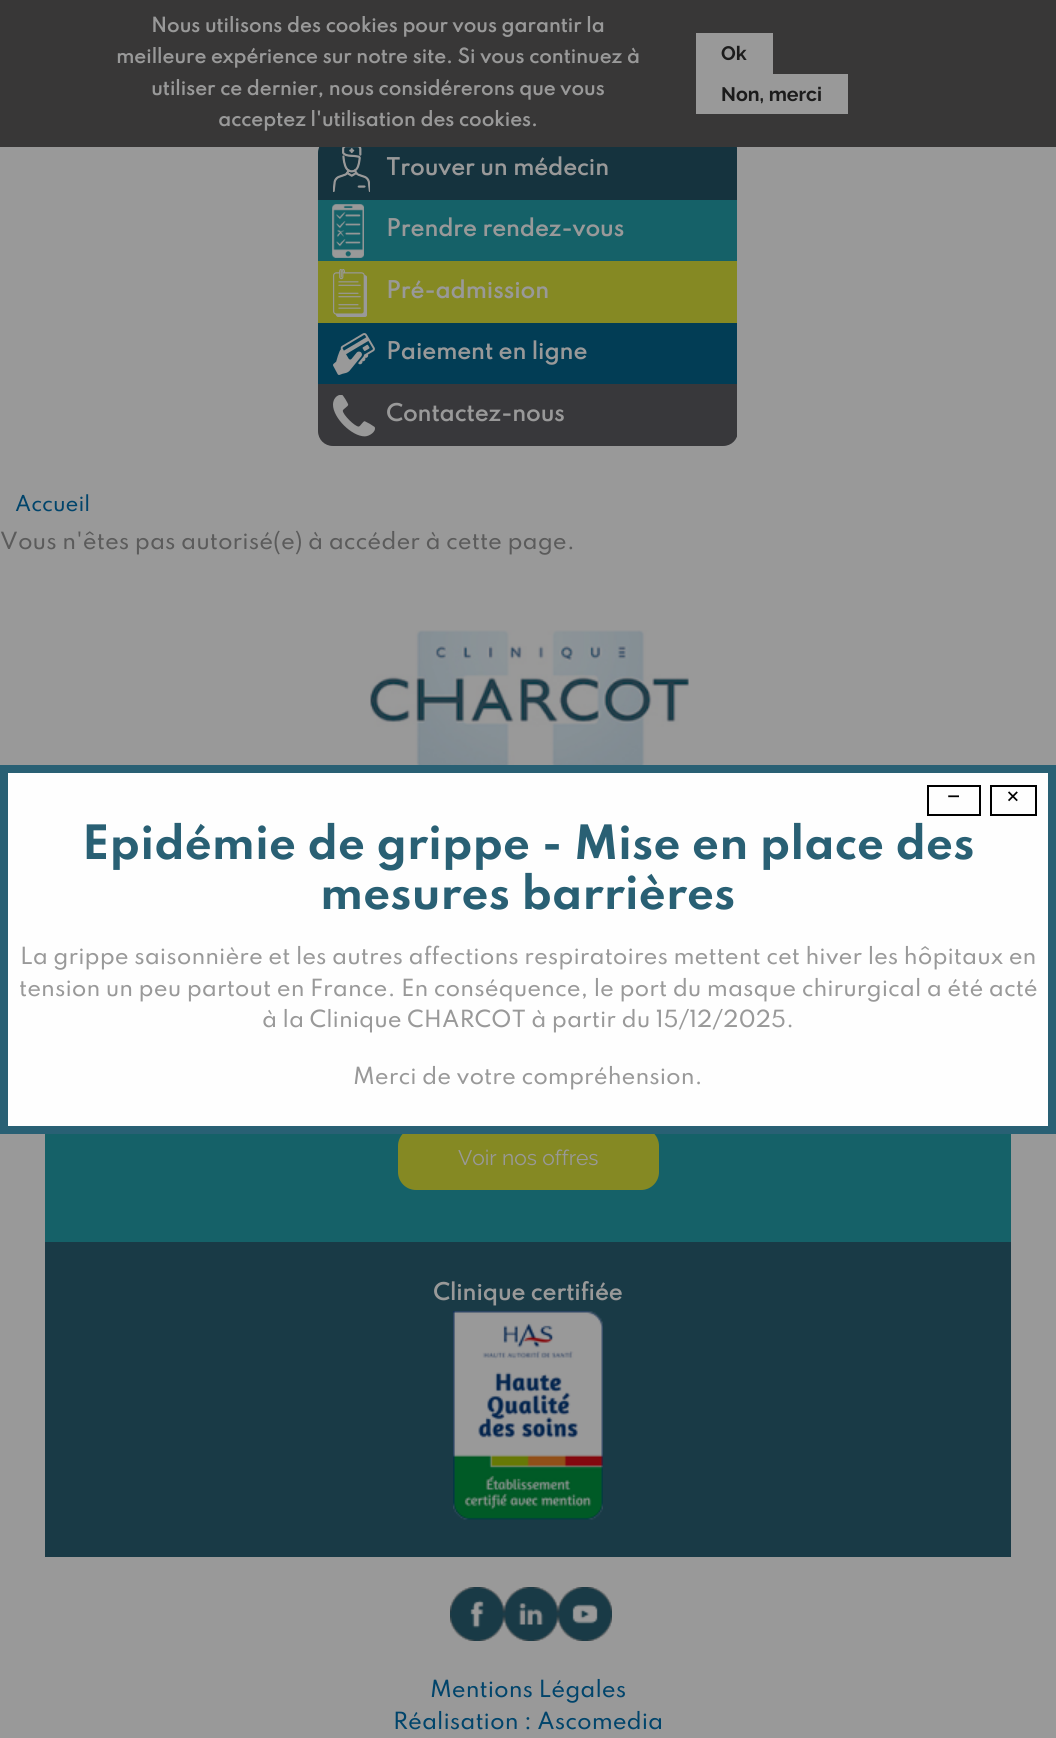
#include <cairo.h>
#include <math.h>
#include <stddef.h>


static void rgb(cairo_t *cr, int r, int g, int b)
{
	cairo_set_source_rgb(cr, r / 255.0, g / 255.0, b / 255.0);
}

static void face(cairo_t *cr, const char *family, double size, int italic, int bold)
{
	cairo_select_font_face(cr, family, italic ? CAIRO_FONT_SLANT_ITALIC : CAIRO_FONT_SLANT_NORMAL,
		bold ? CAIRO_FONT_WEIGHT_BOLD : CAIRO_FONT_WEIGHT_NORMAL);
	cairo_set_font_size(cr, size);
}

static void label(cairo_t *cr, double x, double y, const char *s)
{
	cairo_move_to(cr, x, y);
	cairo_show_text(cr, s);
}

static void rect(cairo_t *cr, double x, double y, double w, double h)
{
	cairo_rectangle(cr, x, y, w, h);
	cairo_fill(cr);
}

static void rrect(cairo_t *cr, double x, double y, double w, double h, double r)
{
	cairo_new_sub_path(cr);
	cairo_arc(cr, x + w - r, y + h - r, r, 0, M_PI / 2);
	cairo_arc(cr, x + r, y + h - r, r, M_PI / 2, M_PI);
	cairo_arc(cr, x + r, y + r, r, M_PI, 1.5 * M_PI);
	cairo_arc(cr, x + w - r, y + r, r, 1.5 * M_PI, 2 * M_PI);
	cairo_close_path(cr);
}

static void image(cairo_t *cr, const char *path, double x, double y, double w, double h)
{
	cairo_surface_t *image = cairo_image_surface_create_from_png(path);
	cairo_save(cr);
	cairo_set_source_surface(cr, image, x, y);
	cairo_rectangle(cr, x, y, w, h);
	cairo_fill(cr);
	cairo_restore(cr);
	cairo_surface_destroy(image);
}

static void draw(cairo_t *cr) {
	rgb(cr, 153, 153, 153);
	cairo_paint(cr);
	rgb(cr, 21, 51, 62);
	cairo_new_path(cr);
	cairo_move_to(cr, 333, 138);
	cairo_line_to(cr, 723, 138);
	cairo_curve_to(cr, 731.5, 138, 738, 144.5, 738, 153);
	cairo_line_to(cr, 738, 200);
	cairo_line_to(cr, 318, 200);
	cairo_line_to(cr, 318, 153);
	cairo_curve_to(cr, 318, 144.5, 324.5, 138, 333, 138);
	cairo_close_path(cr);
	cairo_fill(cr);
	rgb(cr, 153, 153, 153);
	rect(cr, 737, 146, 1, 54);
	rgb(cr, 56, 55, 55);
	rect(cr, 0, 0, 1056, 147);
	face(cr, "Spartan", 18, 0, 1);
	rgb(cr, 153, 153, 153);
	label(cr, 151, 32, "Nous utilisons des cookies pour vous garantir la");
	label(cr, 116, 63, "meilleure expérience sur notre site. Si vous continuez à");
	label(cr, 151, 95, "utiliser ce dernier, nous considérerons que vous");
	label(cr, 218, 126, "acceptez l'utilisation des cookies.");
	rect(cr, 696, 33, 77, 41);
	face(cr, "Raleway", 19.5, 0, 1);
	rgb(cr, 28, 28, 28);
	label(cr, 721, 60, "Ok");
	rgb(cr, 153, 153, 153);
	rect(cr, 696, 74, 152, 40);
	rgb(cr, 28, 28, 28);
	label(cr, 721, 101, "Non, merci");
	image(cr, "image0.png", 333, 147, 37, 45);
	face(cr, "Spartan", 21, 0, 1);
	rgb(cr, 153, 153, 153);
	label(cr, 386, 175, "Trouver un médecin");
	rgb(cr, 21, 97, 104);
	rect(cr, 318, 200, 419, 61);
	image(cr, "image1.png", 332, 204, 32, 54);
	rgb(cr, 153, 153, 153);
	label(cr, 386, 236, "Prendre rendez-vous");
	rgb(cr, 133, 137, 35);
	rect(cr, 318, 261, 419, 62);
	image(cr, "image2.png", 333, 269, 34, 48);
	rgb(cr, 153, 153, 153);
	label(cr, 386, 298, "Pré-admission");
	rgb(cr, 2, 61, 85);
	rect(cr, 318, 323, 419, 61);
	image(cr, "image3.png", 333, 333, 42, 42);
	rgb(cr, 153, 153, 153);
	label(cr, 386, 359, "Paiement en ligne");
	rgb(cr, 56, 56, 59);
	cairo_new_path(cr);
	cairo_move_to(cr, 318, 384);
	cairo_line_to(cr, 738, 384);
	cairo_line_to(cr, 738, 431);
	cairo_curve_to(cr, 738, 439.5, 731.5, 446, 723, 446);
	cairo_line_to(cr, 333, 446);
	cairo_curve_to(cr, 324.5, 446, 318, 439.5, 318, 431);
	cairo_close_path(cr);
	cairo_fill(cr);
	image(cr, "image4.png", 333, 395, 42, 42);
	rgb(cr, 153, 153, 153);
	rect(cr, 737, 384, 1, 54);
	label(cr, 386, 421, "Contactez-nous");
	rgb(cr, 21, 97, 104);
	rect(cr, 45, 1134, 966, 108);
	rgb(cr, 133, 137, 35);
	rrect(cr, 398, 1128, 261, 62, 18);
	cairo_fill(cr);
	rgb(cr, 254, 254, 254);
	cairo_rectangle(cr, 4, 769, 1048, 361);
	cairo_fill_preserve(cr);
	rgb(cr, 41, 96, 116);
	cairo_set_line_width(cr, 8);
	cairo_stroke(cr);
	cairo_rectangle(cr, 928, 786, 52, 29);
	rgb(cr, 0, 0, 0);
	cairo_set_line_width(cr, 2);
	cairo_stroke(cr);
	face(cr, "Spartan Medium", 21, 0, 0);
	label(cr, 945, 805, "−");
	cairo_rectangle(cr, 991, 786, 45, 29);
	cairo_stroke(cr);
	label(cr, 1006, 805, "×");
	face(cr, "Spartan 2", 42, 0, 1);
	rgb(cr, 41, 96, 116);
	label(cr, 82, 859, "Epidémie de grippe - Mise en place des");
	label(cr, 320, 909, "mesures barrières");
	face(cr, "Spartan Medium", 21, 0, 0);
	rgb(cr, 153, 153, 153);
	label(cr, 20, 964, "La grippe saisonnière et les autres affections respiratoires mettent cet hiver les hôpitaux en");
	label(cr, 19, 996, "tension un peu partout en France. En conséquence, le port du masque chirurgical a été acté");
	label(cr, 262, 1027, "à la Clinique CHARCOT à partir du 15/12/2025.");
	label(cr, 353, 1084, "Merci de votre compréhension.");
	face(cr, "Spartan Medium", 19.5, 0, 0);
	rgb(cr, 0, 68, 107);
	label(cr, 15, 511, "Accueil");
	face(cr, "Spartan Medium", 21, 0, 0);
	rgb(cr, 91, 91, 91);
	label(cr, 0, 549, "Vous n'êtes pas autorisé(e) à accéder à cette page.");
	image(cr, "image5.png", 370, 630, 319, 135);
	face(cr, "Raleway", 21, 0, 0);
	rgb(cr, 153, 153, 153);
	label(cr, 458, 1165, "Voir nos offres");
	rgb(cr, 25, 58, 70);
	rect(cr, 45, 1242, 966, 315);
	face(cr, "Spartan", 21, 0, 1);
	rgb(cr, 153, 153, 153);
	label(cr, 433, 1300, "Clinique certifiée");
	image(cr, "image6.png", 453, 1311, 150, 209);
	image(cr, "image7.png", 450, 1587, 54, 54);
	image(cr, "image8.png", 504, 1587, 54, 54);
	image(cr, "image9.png", 558, 1587, 54, 54);
	face(cr, "Spartan Medium", 21, 0, 0);
	rgb(cr, 0, 68, 107);
	label(cr, 430, 1697, "Mentions Légales");
	label(cr, 393, 1729, "Réalisation : Ascomedia");
}

int main(void) {
	cairo_surface_t *surface = cairo_image_surface_create(CAIRO_FORMAT_RGB24, 1056, 1738);
	cairo_t *cr = cairo_create(surface);
	cairo_font_options_t *options = cairo_font_options_create();
	cairo_font_options_set_hint_metrics(options, CAIRO_HINT_METRICS_OFF);
	cairo_font_options_set_hint_style(options, CAIRO_HINT_STYLE_NONE);
	cairo_set_font_options(cr, options);
	cairo_set_miter_limit(cr, 4);
	draw(cr);
	cairo_surface_write_to_png(surface, "render.png");
	cairo_font_options_destroy(options);
	cairo_destroy(cr);
	cairo_surface_destroy(surface);
	return 0;
}
